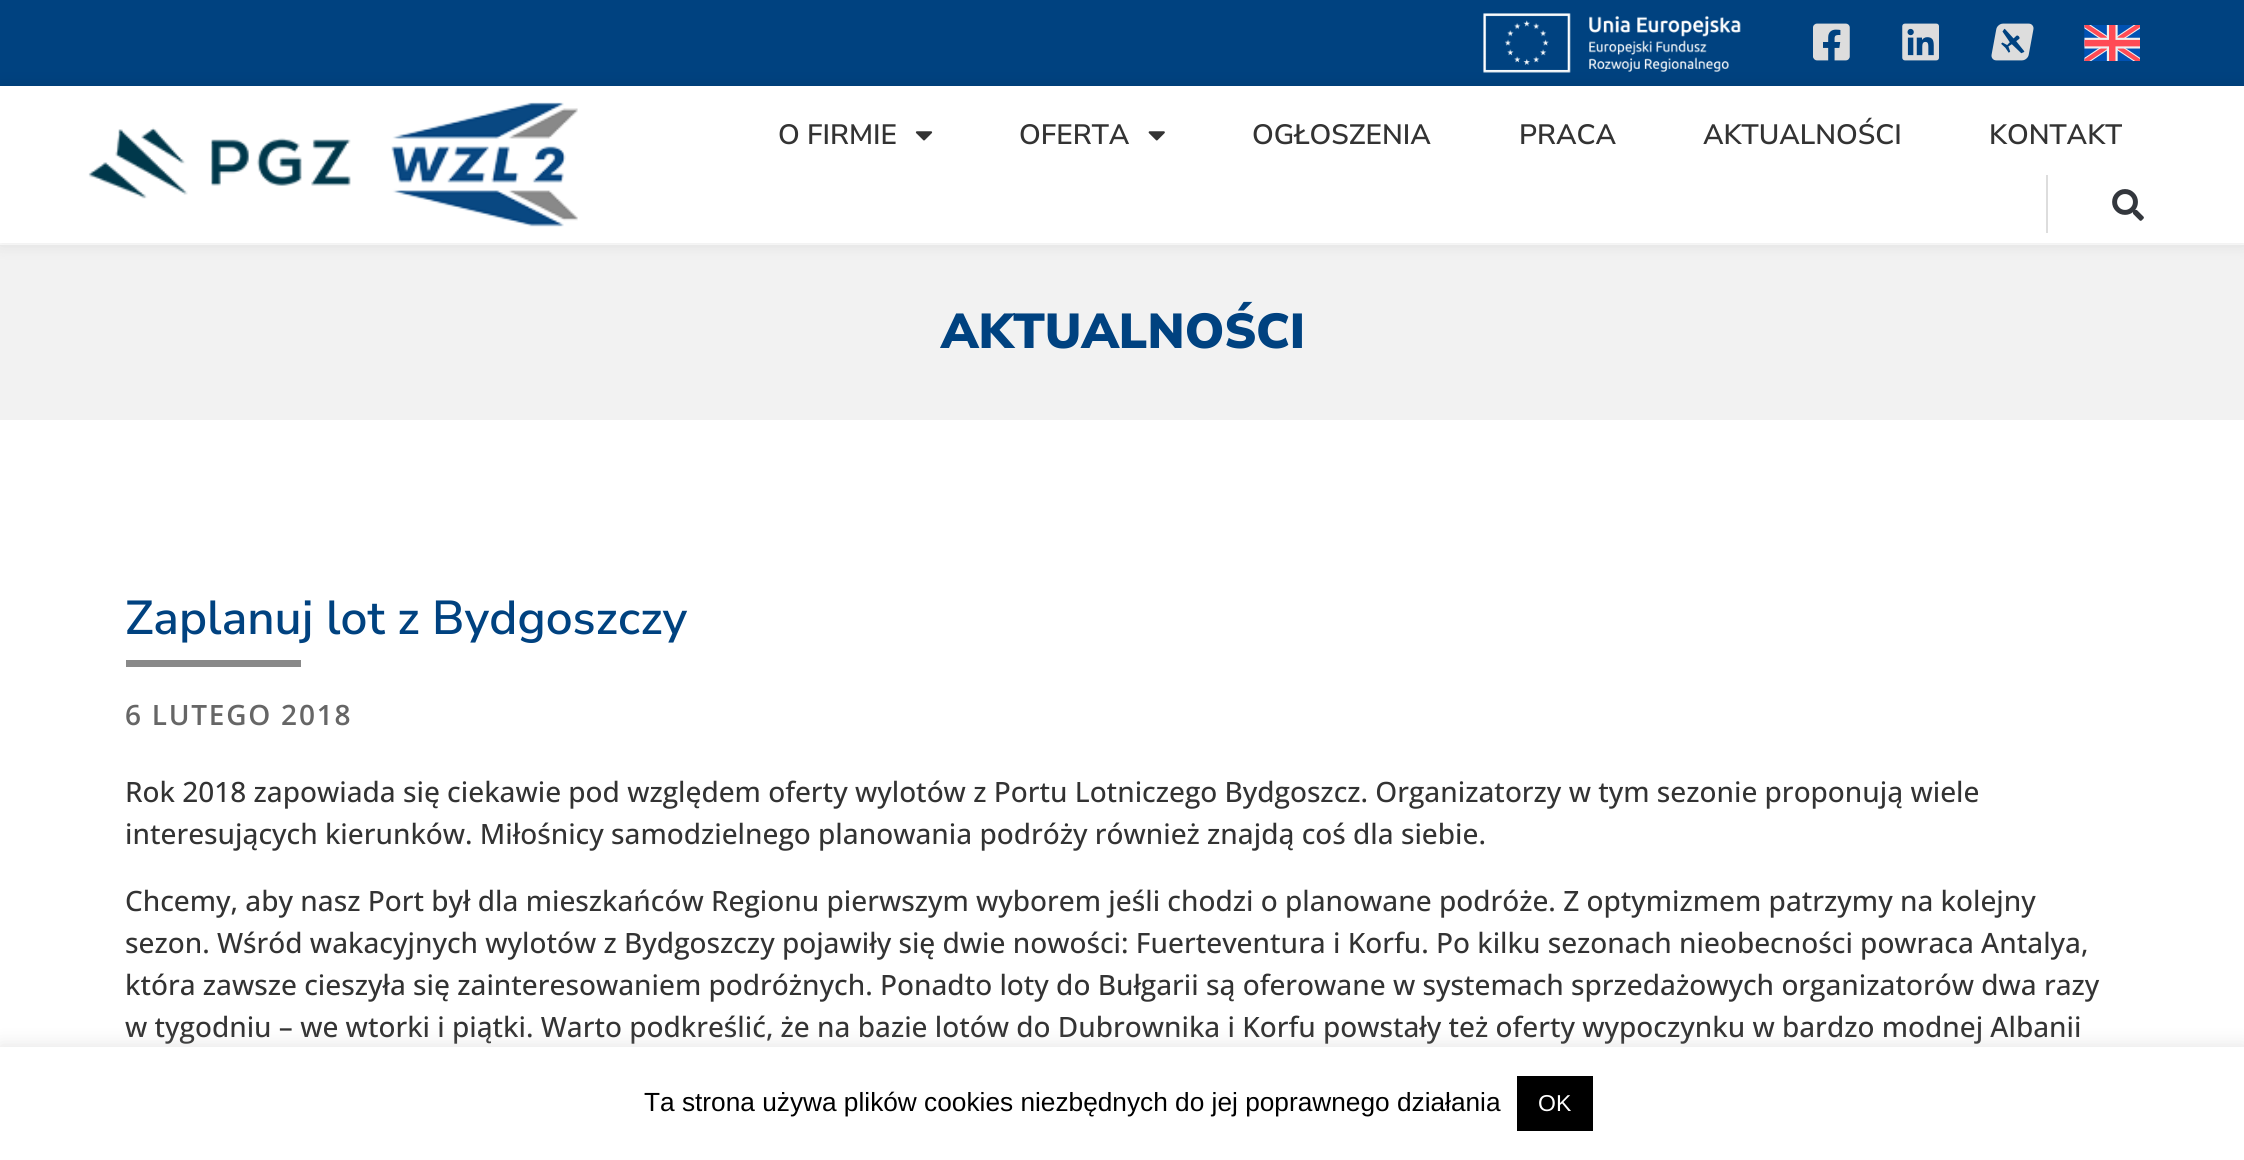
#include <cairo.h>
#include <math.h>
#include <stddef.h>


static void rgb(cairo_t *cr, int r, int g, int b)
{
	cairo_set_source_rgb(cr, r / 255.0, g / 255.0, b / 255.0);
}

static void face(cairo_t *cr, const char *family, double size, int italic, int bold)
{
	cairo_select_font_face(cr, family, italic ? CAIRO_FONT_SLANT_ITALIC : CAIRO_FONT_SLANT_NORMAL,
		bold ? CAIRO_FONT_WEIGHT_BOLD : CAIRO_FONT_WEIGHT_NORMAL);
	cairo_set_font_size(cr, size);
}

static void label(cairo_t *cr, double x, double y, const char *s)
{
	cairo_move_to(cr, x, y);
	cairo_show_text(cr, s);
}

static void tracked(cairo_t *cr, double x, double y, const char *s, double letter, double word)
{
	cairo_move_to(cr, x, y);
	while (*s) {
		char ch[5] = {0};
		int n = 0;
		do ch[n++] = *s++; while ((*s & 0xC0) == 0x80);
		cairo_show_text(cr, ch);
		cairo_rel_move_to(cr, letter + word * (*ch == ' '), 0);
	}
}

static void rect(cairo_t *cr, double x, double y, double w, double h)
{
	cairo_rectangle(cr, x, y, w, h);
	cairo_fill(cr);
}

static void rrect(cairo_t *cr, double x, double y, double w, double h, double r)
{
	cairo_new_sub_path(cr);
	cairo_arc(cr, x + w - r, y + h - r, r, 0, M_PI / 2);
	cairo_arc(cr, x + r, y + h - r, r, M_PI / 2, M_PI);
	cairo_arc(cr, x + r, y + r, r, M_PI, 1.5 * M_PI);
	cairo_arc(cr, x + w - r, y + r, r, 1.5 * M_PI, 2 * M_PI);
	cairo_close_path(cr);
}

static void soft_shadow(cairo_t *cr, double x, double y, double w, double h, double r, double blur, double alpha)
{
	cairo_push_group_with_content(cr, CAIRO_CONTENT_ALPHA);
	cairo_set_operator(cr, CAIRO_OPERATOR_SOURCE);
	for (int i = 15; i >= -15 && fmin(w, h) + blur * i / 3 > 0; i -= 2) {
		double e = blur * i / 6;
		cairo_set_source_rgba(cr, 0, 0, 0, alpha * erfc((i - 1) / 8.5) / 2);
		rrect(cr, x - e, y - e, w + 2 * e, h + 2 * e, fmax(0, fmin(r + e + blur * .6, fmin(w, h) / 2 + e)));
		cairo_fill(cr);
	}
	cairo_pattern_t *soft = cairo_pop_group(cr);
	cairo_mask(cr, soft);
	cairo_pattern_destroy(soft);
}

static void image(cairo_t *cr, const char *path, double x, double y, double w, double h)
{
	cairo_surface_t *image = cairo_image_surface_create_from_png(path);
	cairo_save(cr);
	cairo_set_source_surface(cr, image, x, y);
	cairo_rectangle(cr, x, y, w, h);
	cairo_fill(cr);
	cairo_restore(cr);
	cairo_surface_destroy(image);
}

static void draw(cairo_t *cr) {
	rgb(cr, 255, 255, 255);
	cairo_paint(cr);
	rgb(cr, 0, 66, 128);
	rect(cr, 0, 0, 2244, 86);
	image(cr, "image0.png", 1483, 13, 258, 60);
	image(cr, "image1.png", 1813, 23, 37, 38);
	image(cr, "image2.png", 1902, 23, 37, 38);
	image(cr, "image3.png", 1991, 23, 43, 38);
	image(cr, "image4.png", 2084, 25, 56, 36);
	rgb(cr, 242, 242, 242);
	rect(cr, 0, 245, 2244, 175);
	cairo_save(cr);
	cairo_set_fill_rule(cr, CAIRO_FILL_RULE_EVEN_ODD);
	cairo_new_path(cr);
	cairo_move_to(cr, 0, 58);
	cairo_line_to(cr, 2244, 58);
	cairo_line_to(cr, 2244, 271);
	cairo_line_to(cr, 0, 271);
	cairo_close_path(cr);
	cairo_move_to(cr, 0, 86);
	cairo_line_to(cr, 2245, 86);
	cairo_line_to(cr, 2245, 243);
	cairo_line_to(cr, 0, 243);
	cairo_close_path(cr);
	cairo_clip(cr);
	rgb(cr, 0, 0, 0);
	soft_shadow(cr, 0, 86, 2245, 157, 0, 9, 0.1);
	cairo_restore(cr);
	image(cr, "image5.png", 88, 127, 263, 72);
	image(cr, "image6.png", 391, 102, 187, 125);
	face(cr, "Nunito Sans SemiBold", 28, 0, 0);
	rgb(cr, 51, 51, 51);
	label(cr, 778, 144, "O FIRMIE");
	image(cr, "image7.png", 915, 131, 18, 10);
	label(cr, 1019, 144, "OFERTA");
	image(cr, "image8.png", 1148, 131, 17, 10);
	label(cr, 1252, 144, "OGŁOSZENIA");
	label(cr, 1519, 144, "PRACA");
	label(cr, 1703, 144, "AKTUALNOŚCI");
	label(cr, 1989, 144, "KONTAKT");
	rgb(cr, 221, 221, 221);
	rect(cr, 2046, 175, 2, 58);
	image(cr, "image9.png", 2112, 189, 32, 32);
	face(cr, "Nunito Sans Black", 49, 0, 0);
	rgb(cr, 0, 66, 128);
	label(cr, 941, 348, "AKTUALNOŚCI");
	face(cr, "Nunito Sans SemiBold", 47.6, 0, 0);
	label(cr, 125, 634, "Zaplanuj lot z Bydgoszczy");
	rgb(cr, 137, 137, 137);
	rect(cr, 126, 660, 175, 7);
	face(cr, "Open Sans SemiBold", 28, 0, 0);
	rgb(cr, 102, 102, 102);
	tracked(cr, 125, 725, "6 LUTEGO 2018", 1.75, 0);
	face(cr, "Open Sans Medium", 28, 0, 0);
	rgb(cr, 51, 51, 51);
	label(cr, 125, 802, "Rok 2018 zapowiada się ciekawie pod względem oferty wylotów z Portu Lotniczego Bydgoszcz. Organizatorzy w tym sezonie proponują wiele");
	label(cr, 125, 844, "interesujących kierunków. Miłośnicy samodzielnego planowania podróży również znajdą coś dla siebie.");
	label(cr, 125, 911, "Chcemy, aby nasz Port był dla mieszkańców Regionu pierwszym wyborem jeśli chodzi o planowane podróże. Z optymizmem patrzymy na kolejny");
	label(cr, 125, 953, "sezon. Wśród wakacyjnych wylotów z Bydgoszczy pojawiły się dwie nowości: Fuerteventura i Korfu. Po kilku sezonach nieobecności powraca Antalya,");
	label(cr, 125, 995, "która zawsze cieszyła się zainteresowaniem podróżnych. Ponadto loty do Bułgarii są oferowane w systemach sprzedażowych organizatorów dwa razy");
	label(cr, 125, 1037, "w tygodniu – we wtorki i piątki. Warto podkreślić, że na bazie lotów do Dubrownika i Korfu powstały też oferty wypoczynku w bardzo modnej Albanii");
	rgb(cr, 172, 171, 171);
	soft_shadow(cr, 0, 1045, 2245, 114, 0, 9, 0.3);
	rgb(cr, 255, 255, 255);
	rect(cr, 0, 1047, 2244, 113);
	face(cr, "Liberation Sans", 26.25, 0, 0);
	rgb(cr, 0, 0, 0);
	label(cr, 644, 1111, "Ta strona używa plików cookies niezbędnych do jej poprawnego działania");
	rect(cr, 1517, 1076, 76, 55);
	face(cr, "Liberation Sans", 23, 0, 0);
	rgb(cr, 255, 255, 255);
	label(cr, 1538, 1111, "OK");
}

int main(void) {
	cairo_surface_t *surface = cairo_image_surface_create(CAIRO_FORMAT_RGB24, 2244, 1160);
	cairo_t *cr = cairo_create(surface);
	cairo_font_options_t *options = cairo_font_options_create();
	cairo_font_options_set_hint_metrics(options, CAIRO_HINT_METRICS_OFF);
	cairo_font_options_set_hint_style(options, CAIRO_HINT_STYLE_NONE);
	cairo_set_font_options(cr, options);
	cairo_set_miter_limit(cr, 4);
	draw(cr);
	cairo_surface_write_to_png(surface, "render.png");
	cairo_font_options_destroy(options);
	cairo_destroy(cr);
	cairo_surface_destroy(surface);
	return 0;
}
